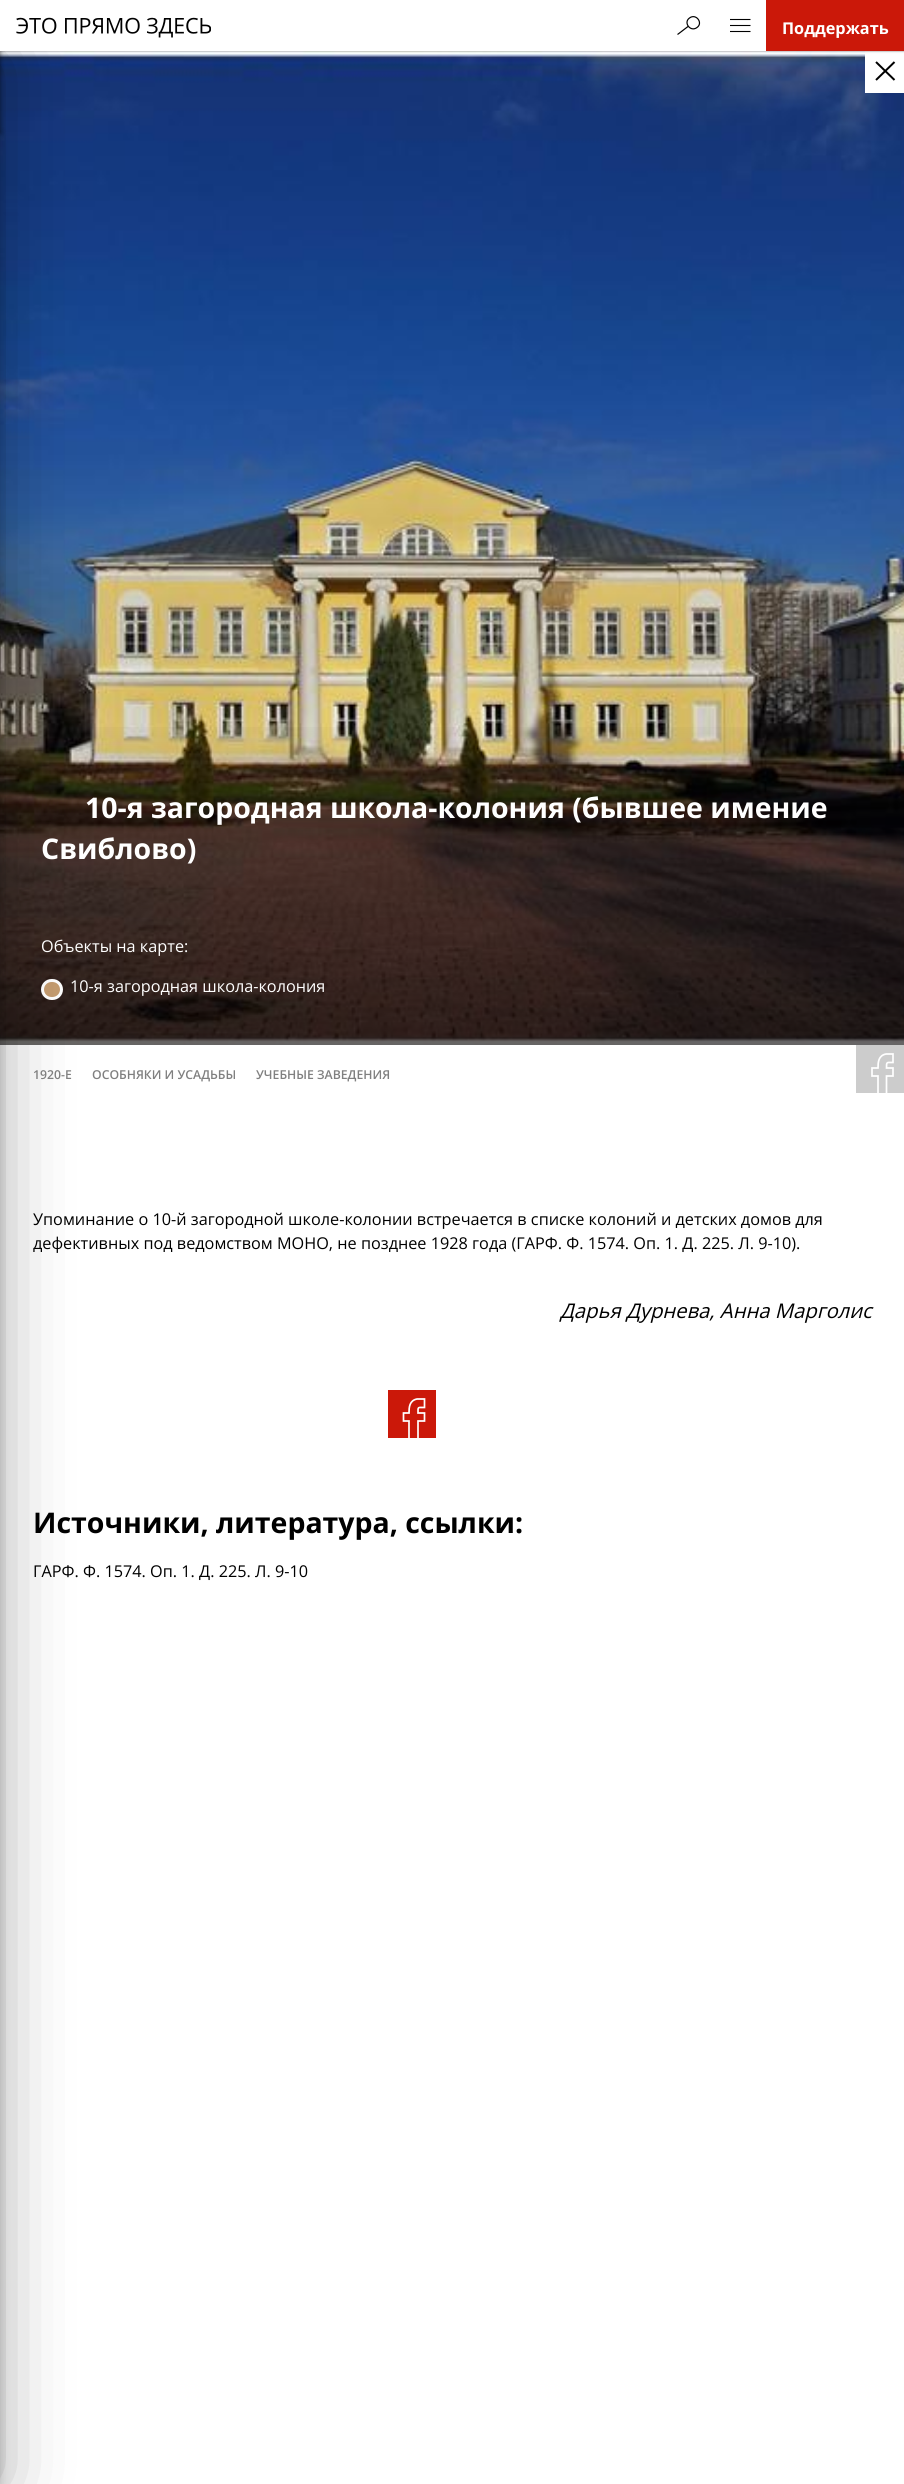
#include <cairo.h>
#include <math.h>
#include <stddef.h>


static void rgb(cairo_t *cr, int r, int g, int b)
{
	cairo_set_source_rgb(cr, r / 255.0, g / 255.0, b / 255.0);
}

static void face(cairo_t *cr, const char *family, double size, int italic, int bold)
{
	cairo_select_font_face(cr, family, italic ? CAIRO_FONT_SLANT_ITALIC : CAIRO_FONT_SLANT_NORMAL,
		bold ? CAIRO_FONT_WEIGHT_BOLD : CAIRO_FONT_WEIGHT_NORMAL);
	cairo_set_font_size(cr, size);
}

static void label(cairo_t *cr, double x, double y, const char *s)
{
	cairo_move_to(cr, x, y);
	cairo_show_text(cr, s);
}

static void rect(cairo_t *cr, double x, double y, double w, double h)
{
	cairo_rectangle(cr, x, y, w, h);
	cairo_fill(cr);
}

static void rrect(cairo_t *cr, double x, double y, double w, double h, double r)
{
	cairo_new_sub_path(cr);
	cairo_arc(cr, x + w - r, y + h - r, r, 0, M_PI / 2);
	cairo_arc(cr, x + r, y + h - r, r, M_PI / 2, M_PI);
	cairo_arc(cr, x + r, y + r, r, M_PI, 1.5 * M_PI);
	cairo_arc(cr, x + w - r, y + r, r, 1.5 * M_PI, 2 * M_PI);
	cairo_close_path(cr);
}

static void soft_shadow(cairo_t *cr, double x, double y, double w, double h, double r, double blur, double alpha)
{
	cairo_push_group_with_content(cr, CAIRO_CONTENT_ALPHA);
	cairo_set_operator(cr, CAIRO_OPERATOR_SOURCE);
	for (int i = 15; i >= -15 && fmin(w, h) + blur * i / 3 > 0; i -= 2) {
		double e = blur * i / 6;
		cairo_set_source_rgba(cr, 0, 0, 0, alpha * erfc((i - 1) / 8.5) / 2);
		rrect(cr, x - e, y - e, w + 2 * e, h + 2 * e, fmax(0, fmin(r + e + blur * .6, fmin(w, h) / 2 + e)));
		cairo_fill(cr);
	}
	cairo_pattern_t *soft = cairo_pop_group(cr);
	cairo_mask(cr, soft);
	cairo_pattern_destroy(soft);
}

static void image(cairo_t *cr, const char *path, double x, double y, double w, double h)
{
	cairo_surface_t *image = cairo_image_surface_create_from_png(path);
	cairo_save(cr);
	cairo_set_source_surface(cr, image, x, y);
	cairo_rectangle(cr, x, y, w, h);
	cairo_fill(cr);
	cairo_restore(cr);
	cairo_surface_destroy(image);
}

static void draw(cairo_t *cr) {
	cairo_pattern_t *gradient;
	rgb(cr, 255, 255, 255);
	cairo_paint(cr);
	image(cr, "image1.png", 0, 51, 904, 994);
	rgb(cr, 255, 255, 255);
	rect(cr, 865, 51, 39, 42);
	rgb(cr, 0, 0, 0);
	soft_shadow(cr, 0, 0, 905, 51, 0, 1, 0.55);
	gradient = cairo_pattern_create_linear(453, 715, 453, 1045);
	cairo_pattern_add_color_stop_rgba(gradient, 0, 0, 0, 0, 0);
	cairo_pattern_add_color_stop_rgba(gradient, 1, 0, 0, 0, 0.6);
	cairo_set_source(cr, gradient);
	cairo_pattern_destroy(gradient);
	rect(cr, 0, 727, 904, 318);
	rgb(cr, 197, 156, 112);
	rrect(cr, 42.5, 980.5, 19, 18, 9);
	cairo_fill_preserve(cr);
	rgb(cr, 255, 255, 255);
	cairo_set_line_width(cr, 3);
	cairo_stroke(cr);
	rgb(cr, 0, 0, 0);
	soft_shadow(cr, -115, 54, 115, 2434, 8, 35.5, 0.33);
	soft_shadow(cr, -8, 51, 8, 82, 0, 2.5, 0.55);
	rgb(cr, 255, 255, 255);
	rect(cr, 0, 0, 766, 51);
	image(cr, "image0.png", 16, 17, 195, 21);
	cairo_new_path(cr);
	cairo_move_to(cr, 689.5, 18);
	cairo_curve_to(cr, 696, 13, 703.5, 23, 697, 27.5);
	cairo_curve_to(cr, 690.5, 32.5, 683, 22.5, 689.5, 18);
	cairo_close_path(cr);
	cairo_move_to(cr, 688, 26.5);
	cairo_line_to(cr, 677.5, 34.5);
	rgb(cr, 0, 0, 0);
	cairo_set_line_width(cr, 1.2);
	cairo_stroke(cr);
	cairo_new_path(cr);
	cairo_move_to(cr, 730, 19.5);
	cairo_line_to(cr, 750.5, 19.5);
	cairo_move_to(cr, 730, 25.5);
	cairo_line_to(cr, 750.5, 25.5);
	cairo_move_to(cr, 730, 31.5);
	cairo_line_to(cr, 750.5, 31.5);
	cairo_set_line_width(cr, 1.1);
	cairo_stroke(cr);
	rgb(cr, 203, 24, 9);
	rect(cr, 766, 0, 138, 51);
	face(cr, "Open Sans", 16.25, 0, 1);
	rgb(cr, 255, 255, 255);
	label(cr, 782, 34, "Поддержать");
	rgb(cr, 0, 0, 0);
	soft_shadow(cr, -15, 133, 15, 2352, 0, 5, 0.2);
	cairo_new_path(cr);
	cairo_move_to(cr, 876, 62);
	cairo_line_to(cr, 894.5, 80);
	cairo_move_to(cr, 894.5, 62);
	cairo_line_to(cr, 876, 80);
	rgb(cr, 0, 0, 0);
	cairo_set_line_width(cr, 2);
	cairo_stroke(cr);
	face(cr, "Open Sans", 28.45, 0, 1);
	rgb(cr, 255, 255, 255);
	label(cr, 85, 818, "10-я загородная школа-колония (бывшее имение");
	label(cr, 41, 859, "Свиблово)");
	face(cr, "Open Sans", 16.25, 0, 0);
	label(cr, 41, 952, "Объекты на карте:");
	label(cr, 70, 992, "10-я загородная школа-колония");
	face(cr, "Open Sans SemiBold", 12.25, 0, 0);
	rgb(cr, 128, 128, 128);
	label(cr, 33, 1079, "1920-Е");
	label(cr, 92, 1079, "ОСОБНЯКИ И УСАДЬБЫ");
	label(cr, 256, 1079, "УЧЕБНЫЕ ЗАВЕДЕНИЯ");
	rgb(cr, 204, 204, 204);
	rect(cr, 856, 1045, 48, 48);
	cairo_new_path(cr);
	cairo_move_to(cr, 878, 1093.5);
	cairo_line_to(cr, 878, 1076);
	cairo_line_to(cr, 872, 1076);
	cairo_line_to(cr, 872, 1068);
	cairo_line_to(cr, 878, 1068);
	cairo_curve_to(cr, 878, 1062, 878.5, 1055.5, 886, 1054);
	cairo_line_to(cr, 893, 1054);
	cairo_line_to(cr, 893, 1062.5);
	cairo_curve_to(cr, 886.5, 1062.5, 886.5, 1061.5, 886.5, 1068);
	cairo_line_to(cr, 893, 1068);
	cairo_line_to(cr, 893, 1076);
	cairo_line_to(cr, 886.5, 1076);
	cairo_line_to(cr, 886.5, 1093.5);
	rgb(cr, 255, 255, 255);
	cairo_set_line_width(cr, 1.7);
	cairo_stroke(cr);
	face(cr, "Open Sans", 16.25, 0, 0);
	rgb(cr, 0, 0, 0);
	label(cr, 33, 1225, "Упоминание о 10-й загородной школе-колонии встречается в списке колоний и детских домов для");
	label(cr, 33, 1249, "дефективных под ведомством МОНО, не позднее 1928 года (ГАРФ. Ф. 1574. Оп. 1. Д. 225. Л. 9-10).");
	face(cr, "Open Sans", 20.25, 1, 0);
	label(cr, 560, 1318, "Дарья Дурнева, Анна Марголис");
	rgb(cr, 203, 24, 9);
	rect(cr, 388, 1390, 48, 48);
	cairo_save(cr);
	cairo_rectangle(cr, 388, 1390, 48, 48);
	cairo_clip(cr);
	cairo_new_path(cr);
	cairo_move_to(cr, 409, 1438.5);
	cairo_line_to(cr, 409, 1421);
	cairo_line_to(cr, 403.5, 1421);
	cairo_line_to(cr, 403.5, 1413);
	cairo_line_to(cr, 409, 1413);
	cairo_curve_to(cr, 409, 1407, 409.5, 1400.5, 417, 1399);
	cairo_line_to(cr, 424.5, 1399);
	cairo_line_to(cr, 424.5, 1407.5);
	cairo_curve_to(cr, 417.5, 1407.5, 418, 1406.5, 418, 1413);
	cairo_line_to(cr, 424.5, 1413);
	cairo_line_to(cr, 424.5, 1421);
	cairo_line_to(cr, 418, 1421);
	cairo_line_to(cr, 418, 1438.5);
	rgb(cr, 255, 255, 255);
	cairo_stroke(cr);
	cairo_restore(cr);
	face(cr, "Open Sans", 28.45, 0, 1);
	rgb(cr, 0, 0, 0);
	label(cr, 33, 1533, "Источники, литература, ссылки:");
	face(cr, "Open Sans", 16.25, 0, 0);
	label(cr, 33, 1577, "ГАРФ. Ф. 1574. Оп. 1. Д. 225. Л. 9-10");
}

int main(void) {
	cairo_surface_t *surface = cairo_image_surface_create(CAIRO_FORMAT_RGB24, 904, 2484);
	cairo_t *cr = cairo_create(surface);
	cairo_font_options_t *options = cairo_font_options_create();
	cairo_font_options_set_hint_metrics(options, CAIRO_HINT_METRICS_OFF);
	cairo_font_options_set_hint_style(options, CAIRO_HINT_STYLE_NONE);
	cairo_set_font_options(cr, options);
	cairo_set_miter_limit(cr, 4);
	draw(cr);
	cairo_surface_write_to_png(surface, "render.png");
	cairo_font_options_destroy(options);
	cairo_destroy(cr);
	cairo_surface_destroy(surface);
	return 0;
}
